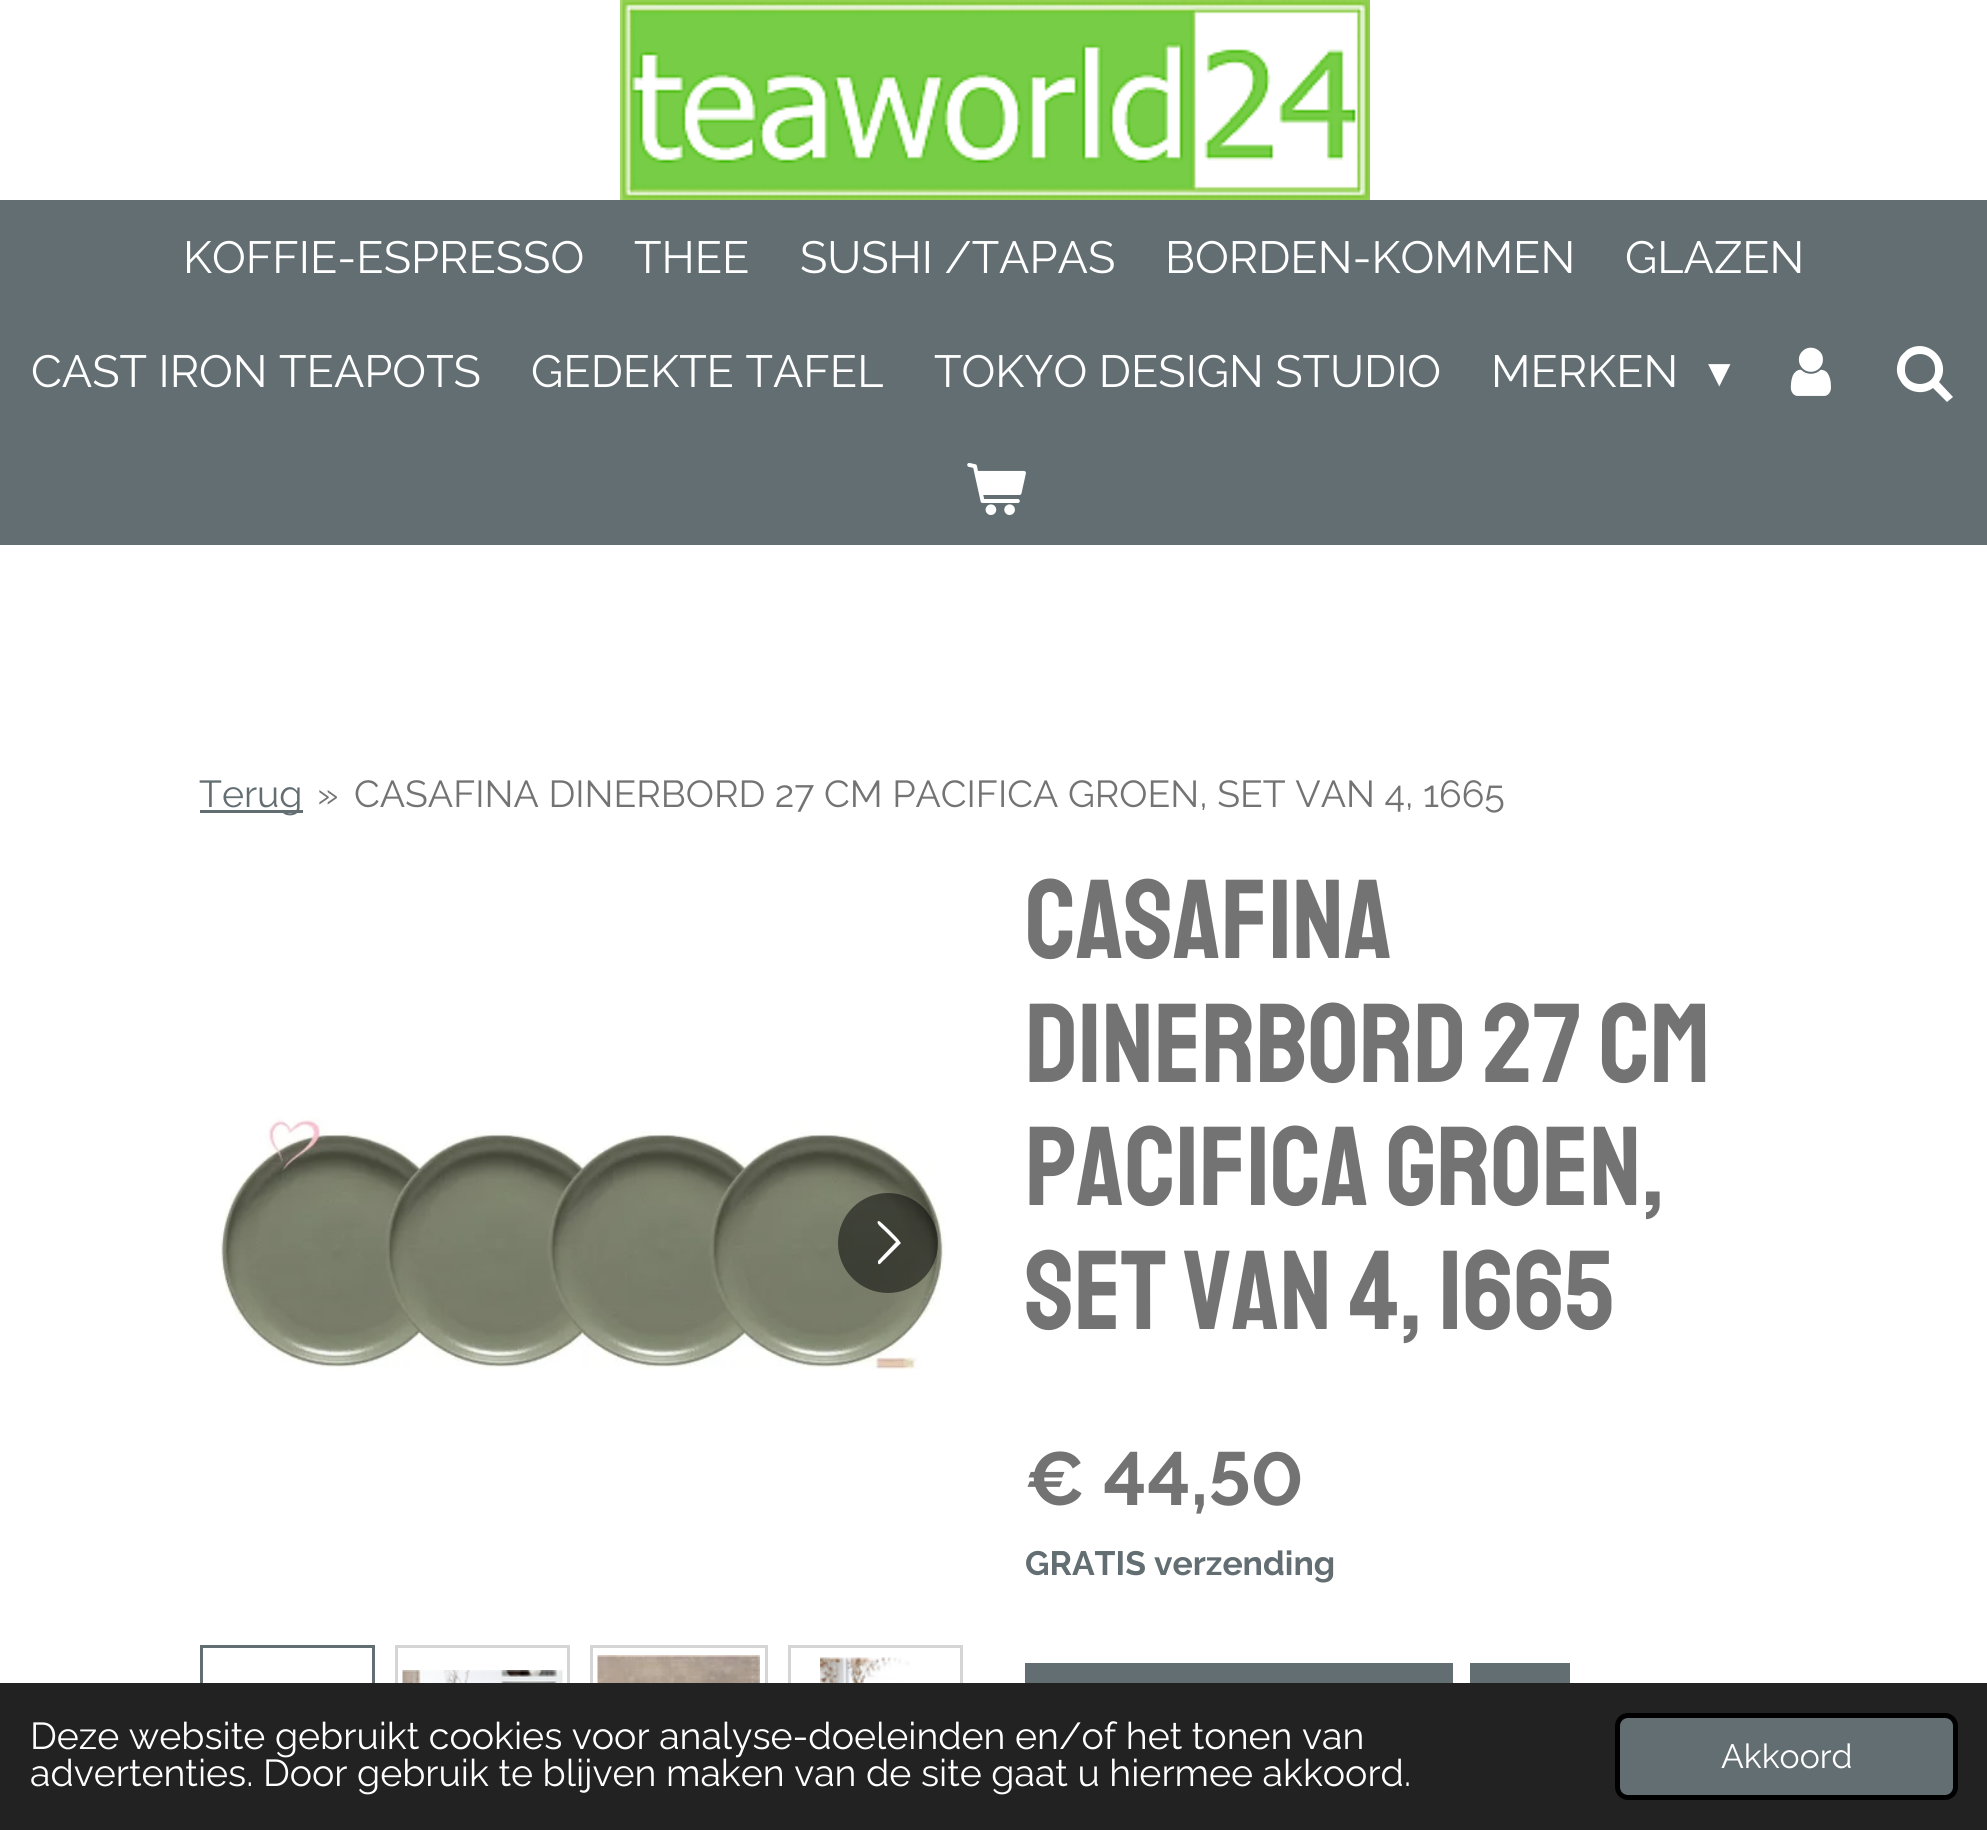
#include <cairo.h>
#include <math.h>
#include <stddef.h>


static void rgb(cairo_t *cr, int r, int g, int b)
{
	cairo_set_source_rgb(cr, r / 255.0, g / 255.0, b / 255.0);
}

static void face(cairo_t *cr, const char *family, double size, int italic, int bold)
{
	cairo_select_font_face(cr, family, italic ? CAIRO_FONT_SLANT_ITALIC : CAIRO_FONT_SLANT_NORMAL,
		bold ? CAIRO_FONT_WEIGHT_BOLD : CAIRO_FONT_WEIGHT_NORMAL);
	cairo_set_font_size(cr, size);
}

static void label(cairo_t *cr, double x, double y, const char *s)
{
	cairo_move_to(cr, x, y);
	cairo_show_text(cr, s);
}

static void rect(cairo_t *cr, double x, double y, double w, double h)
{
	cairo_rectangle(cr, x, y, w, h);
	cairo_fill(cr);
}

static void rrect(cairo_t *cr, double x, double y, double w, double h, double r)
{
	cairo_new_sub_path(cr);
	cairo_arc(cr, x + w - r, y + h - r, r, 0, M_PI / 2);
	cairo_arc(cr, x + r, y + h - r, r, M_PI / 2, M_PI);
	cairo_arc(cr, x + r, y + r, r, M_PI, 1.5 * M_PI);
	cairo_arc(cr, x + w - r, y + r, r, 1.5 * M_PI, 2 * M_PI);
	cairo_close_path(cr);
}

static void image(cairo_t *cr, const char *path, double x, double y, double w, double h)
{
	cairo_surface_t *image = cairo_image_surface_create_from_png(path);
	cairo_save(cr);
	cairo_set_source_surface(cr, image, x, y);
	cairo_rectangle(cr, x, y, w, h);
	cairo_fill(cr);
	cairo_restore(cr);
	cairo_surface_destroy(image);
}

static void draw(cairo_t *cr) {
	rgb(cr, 255, 255, 255);
	cairo_paint(cr);
	image(cr, "image0.png", 620, 0, 750, 200);
	rgb(cr, 99, 110, 114);
	rect(cr, 0, 200, 1987, 345);
	face(cr, "Raleway", 45, 0, 0);
	rgb(cr, 255, 255, 255);
	label(cr, 183, 273, "KOFFIE-ESPRESSO");
	label(cr, 634, 273, "THEE");
	label(cr, 800, 273, "SUSHI /TAPAS");
	label(cr, 1165, 273, "BORDEN-KOMMEN");
	label(cr, 1625, 273, "GLAZEN");
	label(cr, 31, 387, "CAST IRON TEAPOTS");
	label(cr, 531, 387, "GEDEKTE TAFEL");
	label(cr, 934, 387, "TOKYO DESIGN STUDIO");
	label(cr, 1491, 387, "MERKEN");
	face(cr, "DejaVu Sans", 45, 0, 0);
	label(cr, 1708, 387, "▾");
	image(cr, "image1.png", 1790, 347, 41, 49);
	cairo_new_path(cr);
	cairo_move_to(cr, 1939, 382);
	cairo_line_to(cr, 1953, 397);
	cairo_line_to(cr, 1947, 402);
	cairo_line_to(cr, 1933, 388);
	cairo_curve_to(cr, 1922, 396, 1906, 392, 1900, 380);
	cairo_curve_to(cr, 1896, 374, 1896, 367, 1899, 360);
	cairo_curve_to(cr, 1900, 356, 1904, 353, 1907, 350);
	cairo_curve_to(cr, 1928, 336, 1953, 362, 1939, 382);
	cairo_close_path(cr);
	cairo_move_to(cr, 1935, 369);
	cairo_curve_to(cr, 1935, 349, 1905, 349, 1905, 369);
	cairo_curve_to(cr, 1904, 389, 1936, 389, 1935, 369);
	cairo_close_path(cr);
	cairo_fill(cr);
	image(cr, "image2.png", 967, 462, 59, 53);
	rgb(cr, 99, 110, 114);
	rect(cr, 200, 810, 103, 3);
	face(cr, "Raleway", 37.5, 0, 0);
	label(cr, 199, 807, "Terug");
	rgb(cr, 115, 115, 115);
	label(cr, 317, 807, "»");
	label(cr, 354, 807, "CASAFINA DINERBORD 27 CM PACIFICA GROEN, SET VAN 4, 1665");
	image(cr, "image3.png", 220, 1117, 725, 253);
	cairo_set_source_rgba(cr, 0, 0, 0, 0.5);
	cairo_arc(cr, 888, 1243, 50, 0, 2 * M_PI);
	cairo_fill(cr);
	rgb(cr, 255, 255, 255);
	cairo_new_path(cr);
	cairo_move_to(cr, 878, 1261);
	cairo_line_to(cr, 896, 1242);
	cairo_line_to(cr, 884, 1230);
	cairo_curve_to(cr, 883, 1229, 874, 1222, 879, 1221);
	cairo_curve_to(cr, 880, 1221, 899, 1239, 900, 1242);
	cairo_line_to(cr, 901, 1243);
	cairo_line_to(cr, 884, 1260);
	cairo_curve_to(cr, 883, 1260, 879, 1267, 878, 1263);
	cairo_close_path(cr);
	cairo_fill(cr);
	cairo_rectangle(cr, 201.5, 1646.5, 172, 175);
	rgb(cr, 99, 110, 114);
	cairo_set_line_width(cr, 3);
	cairo_stroke(cr);
	cairo_rectangle(cr, 396.5, 1646.5, 172, 175);
	rgb(cr, 213, 213, 213);
	cairo_stroke(cr);
	image(cr, "image4.png", 402, 1670, 161, 13);
	cairo_rectangle(cr, 591.5, 1646.5, 175, 175);
	cairo_stroke(cr);
	image(cr, "image5.png", 597, 1655, 163, 28);
	cairo_rectangle(cr, 789.5, 1646.5, 172, 175);
	cairo_stroke(cr);
	image(cr, "image6.png", 820, 1657, 110, 26);
	face(cr, "Staatliches", 112.5, 0, 0);
	rgb(cr, 115, 115, 115);
	label(cr, 1025, 958, "CASAFINA");
	label(cr, 1025, 1082, "DINERBORD 27 CM");
	label(cr, 1025, 1205, "PACIFICA GROEN,");
	label(cr, 1025, 1329, "SET VAN 4, 1665");
	face(cr, "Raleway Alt", 75, 0, 1);
	label(cr, 1025, 1505, "€ 44,50");
	face(cr, "Raleway", 33.75, 0, 1);
	rgb(cr, 99, 110, 114);
	label(cr, 1025, 1575, "GRATIS verzending");
	rect(cr, 1025, 1663, 428, 20);
	rect(cr, 1470, 1663, 100, 20);
	rgb(cr, 34, 34, 34);
	rect(cr, 0, 1683, 1987, 147);
	face(cr, "Raleway", 37.5, 0, 0);
	rgb(cr, 255, 255, 255);
	label(cr, 30, 1749, "Deze website gebruikt cookies voor analyse-doeleinden en/of het tonen van");
	label(cr, 30, 1786, "advertenties. Door gebruik te blijven maken van de site gaat u hiermee akkoord.");
	rgb(cr, 99, 110, 114);
	rrect(cr, 1617.5, 1715.5, 338, 82, 10.5);
	cairo_fill_preserve(cr);
	rgb(cr, 0, 0, 0);
	cairo_set_line_width(cr, 5);
	cairo_stroke(cr);
	face(cr, "Raleway", 33.75, 0, 0);
	rgb(cr, 255, 255, 255);
	label(cr, 1721, 1768, "Akkoord");
}

int main(void) {
	cairo_surface_t *surface = cairo_image_surface_create(CAIRO_FORMAT_RGB24, 1987, 1830);
	cairo_t *cr = cairo_create(surface);
	cairo_font_options_t *options = cairo_font_options_create();
	cairo_font_options_set_hint_metrics(options, CAIRO_HINT_METRICS_OFF);
	cairo_font_options_set_hint_style(options, CAIRO_HINT_STYLE_NONE);
	cairo_set_font_options(cr, options);
	cairo_set_miter_limit(cr, 4);
	draw(cr);
	cairo_surface_write_to_png(surface, "render.png");
	cairo_font_options_destroy(options);
	cairo_destroy(cr);
	cairo_surface_destroy(surface);
	return 0;
}
